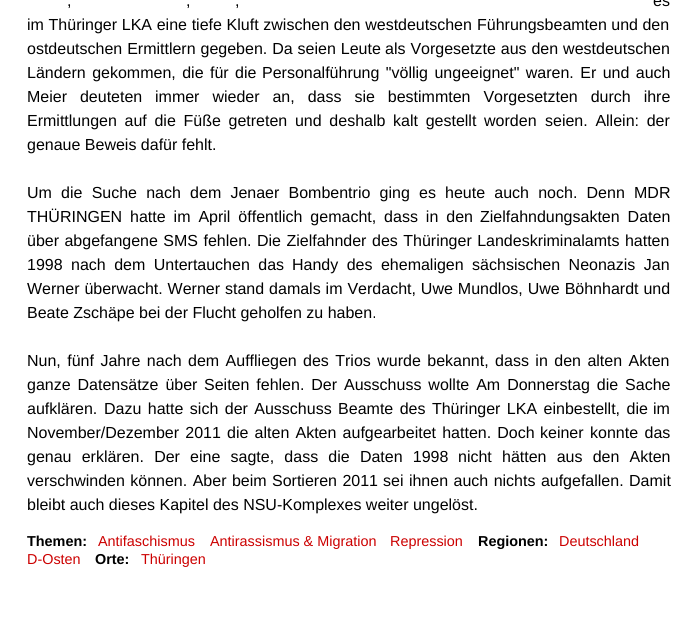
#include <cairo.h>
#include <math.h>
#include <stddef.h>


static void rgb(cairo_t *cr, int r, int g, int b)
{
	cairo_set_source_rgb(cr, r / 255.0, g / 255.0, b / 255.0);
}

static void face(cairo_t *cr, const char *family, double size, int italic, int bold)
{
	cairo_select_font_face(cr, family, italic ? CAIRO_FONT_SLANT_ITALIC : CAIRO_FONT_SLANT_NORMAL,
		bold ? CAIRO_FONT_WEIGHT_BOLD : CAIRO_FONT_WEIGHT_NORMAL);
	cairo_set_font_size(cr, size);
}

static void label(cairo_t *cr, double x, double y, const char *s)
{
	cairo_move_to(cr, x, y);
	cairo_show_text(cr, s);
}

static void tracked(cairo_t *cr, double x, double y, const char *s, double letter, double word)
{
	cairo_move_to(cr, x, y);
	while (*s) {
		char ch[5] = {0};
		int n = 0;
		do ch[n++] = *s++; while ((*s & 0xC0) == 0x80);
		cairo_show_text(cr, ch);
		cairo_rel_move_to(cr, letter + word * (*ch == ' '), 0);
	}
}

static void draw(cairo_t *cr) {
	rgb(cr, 255, 255, 255);
	cairo_paint(cr);
	face(cr, "Liberation Sans", 16, 0, 0);
	rgb(cr, 0, 0, 0);
	label(cr, 67, 6, ",");
	label(cr, 186, 6, ",");
	label(cr, 235, 6, ",");
	label(cr, 653, 6, "es");
	tracked(cr, 27, 30, "im Thüringer LKA eine tiefe Kluft zwischen den westdeutschen", 0, 0.25);
	label(cr, 477, 30, "Führungsbeamten und den");
	tracked(cr, 27, 54, "ostdeutschen Ermittlern gegeben. Da seien Leute", 0, 0.5);
	tracked(cr, 385, 54, "als Vorgesetzte aus den westdeutschen", 0, 0.5);
	tracked(cr, 27, 78, "Ländern gekommen, die für die", 0, 2);
	tracked(cr, 262, 78, "Personalführung \"völlig ungeeignet\" waren. Er und auch", 0, 2);
	tracked(cr, 27, 102, "Meier deuteten", 0, 8.5);
	tracked(cr, 155, 102, "immer wieder an, dass sie bestimmten Vorgesetzten durch ihre", 0, 8.5);
	tracked(cr, 27, 126, "Ermittlungen auf die Füße getreten und deshalb kalt gestellt worden", 0, 3.25);
	tracked(cr, 545, 126, "seien. Allein: der", 0, 3.25);
	label(cr, 27, 150, "genaue Beweis dafür fehlt.");
	tracked(cr, 27, 198, "Um die Suche nach dem Jenaer Bombentrio ging es heute auch noch. Denn", 0, 4.75);
	label(cr, 634, 198, "MDR");
	tracked(cr, 27, 222, "THÜRINGEN hatte im April öffentlich gemacht, dass in den", 0, 3.5);
	tracked(cr, 480, 222, "Zielfahndungsakten Daten", 0, 3.5);
	tracked(cr, 27, 246, "über abgefangene SMS fehlen. Die Zielfahnder", 0, 1);
	tracked(cr, 372, 246, "des Thüringer Landeskriminalamts hatten", 0, 1);
	tracked(cr, 27, 270, "1998 nach dem Untertauchen das", 0, 4);
	tracked(cr, 292, 270, "Handy des ehemaligen sächsischen Neonazis Jan", 0, 4);
	tracked(cr, 27, 294, "Werner überwacht. Werner", 0, 0.5);
	tracked(cr, 225, 294, "stand damals im Verdacht, Uwe Mundlos, Uwe Böhnhardt und", 0, 0.5);
	label(cr, 27, 318, "Beate Zschäpe bei der Flucht geholfen zu haben.");
	tracked(cr, 27, 366, "Nun, fünf Jahre nach dem Auffliegen", 0, 2);
	tracked(cr, 303, 366, "des Trios wurde bekannt, dass in den alten Akten", 0, 2);
	tracked(cr, 27, 390, "ganze Datensätze über", 0, 2.5);
	tracked(cr, 204, 390, "Seiten fehlen. Der Ausschuss wollte Am Donnerstag die Sache", 0, 2.5);
	label(cr, 27, 414, "aufklären.");
	tracked(cr, 104, 414, "Dazu hatte sich der Ausschuss Beamte des Thüringer LKA einbestellt, die", 0, 2);
	label(cr, 653, 414, "im");
	tracked(cr, 27, 438, "November/Dezember 2011 die alten Akten aufgearbeitet hatten. Doch", 0, 1.75);
	tracked(cr, 540, 438, "keiner konnte das", 0, 2);
	tracked(cr, 27, 462, "genau erklären. Der eine sagte, dass die Daten 1998", 0, 5.75);
	tracked(cr, 458, 462, "nicht hätten aus den Akten", 0, 5.75);
	tracked(cr, 27, 486, "verschwinden können. Aber beim Sortieren 2011", 0, 1);
	tracked(cr, 383, 486, "sei ihnen auch nichts aufgefallen. Damit", 0, 1);
	label(cr, 27, 510, "bleibt auch dieses Kapitel des NSU-Komplexes weiter ungelöst.");
	face(cr, "Liberation Sans", 14.4, 0, 1);
	label(cr, 27, 546, "Themen:");
	face(cr, "Liberation Sans", 14.4, 0, 0);
	rgb(cr, 204, 0, 0);
	label(cr, 98, 546, "Antifaschismus");
	label(cr, 210, 546, "Antirassismus & Migration");
	label(cr, 390, 546, "Repression");
	face(cr, "Liberation Sans", 14.4, 0, 1);
	rgb(cr, 0, 0, 0);
	label(cr, 478, 546, "Regionen:");
	face(cr, "Liberation Sans", 14.4, 0, 0);
	rgb(cr, 204, 0, 0);
	label(cr, 559, 546, "Deutschland");
	label(cr, 27, 564, "D-Osten");
	face(cr, "Liberation Sans", 14.4, 0, 1);
	rgb(cr, 0, 0, 0);
	label(cr, 95, 564, "Orte:");
	face(cr, "Liberation Sans", 14.4, 0, 0);
	rgb(cr, 204, 0, 0);
	label(cr, 141, 564, "Thüringen");
}

int main(void) {
	cairo_surface_t *surface = cairo_image_surface_create(CAIRO_FORMAT_RGB24, 697, 642);
	cairo_t *cr = cairo_create(surface);
	cairo_font_options_t *options = cairo_font_options_create();
	cairo_font_options_set_hint_metrics(options, CAIRO_HINT_METRICS_OFF);
	cairo_font_options_set_hint_style(options, CAIRO_HINT_STYLE_NONE);
	cairo_set_font_options(cr, options);
	cairo_set_miter_limit(cr, 4);
	draw(cr);
	cairo_surface_write_to_png(surface, "render.png");
	cairo_font_options_destroy(options);
	cairo_destroy(cr);
	cairo_surface_destroy(surface);
	return 0;
}
